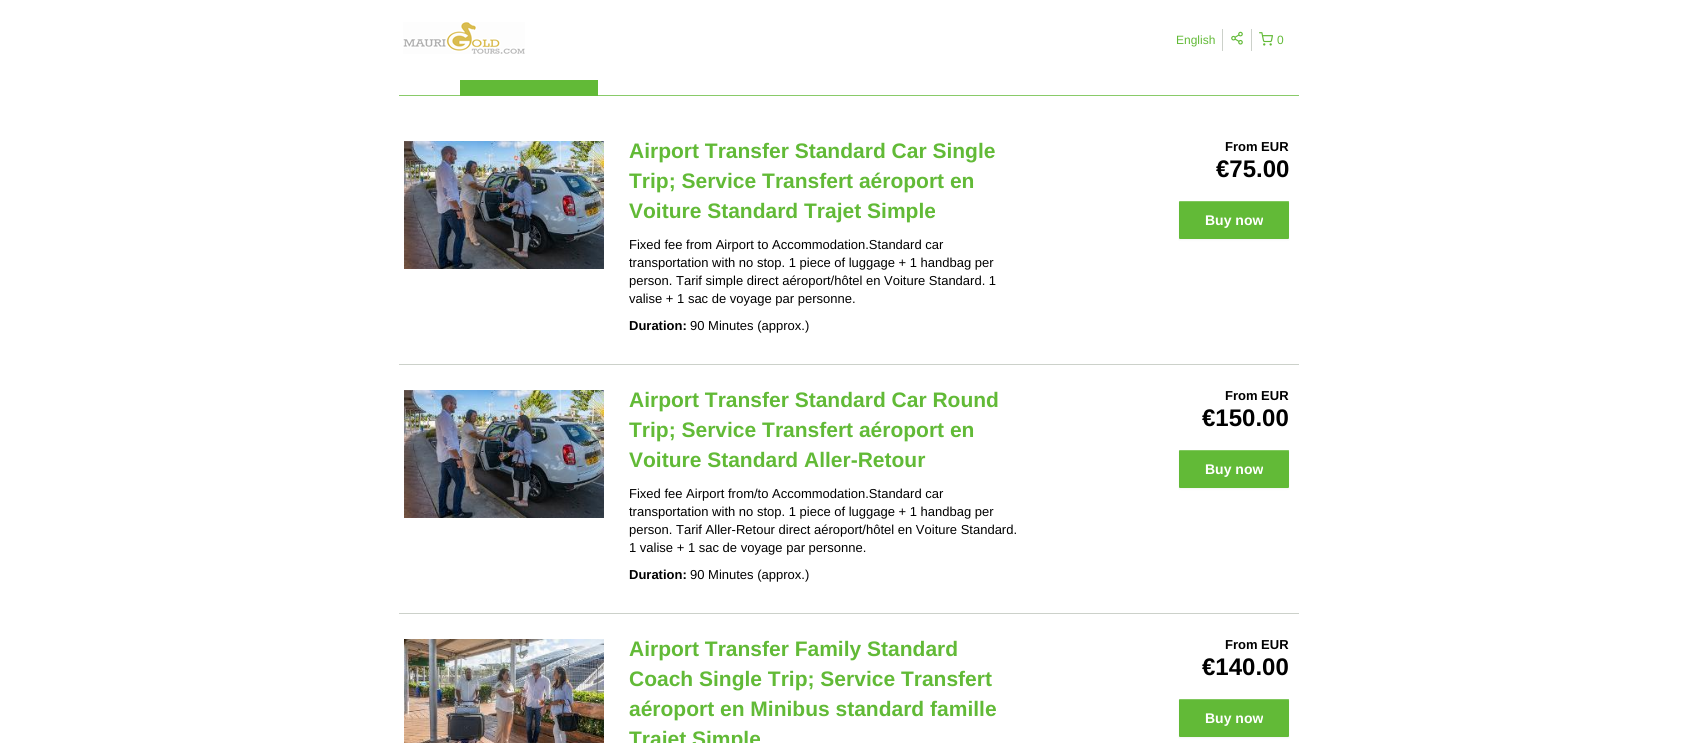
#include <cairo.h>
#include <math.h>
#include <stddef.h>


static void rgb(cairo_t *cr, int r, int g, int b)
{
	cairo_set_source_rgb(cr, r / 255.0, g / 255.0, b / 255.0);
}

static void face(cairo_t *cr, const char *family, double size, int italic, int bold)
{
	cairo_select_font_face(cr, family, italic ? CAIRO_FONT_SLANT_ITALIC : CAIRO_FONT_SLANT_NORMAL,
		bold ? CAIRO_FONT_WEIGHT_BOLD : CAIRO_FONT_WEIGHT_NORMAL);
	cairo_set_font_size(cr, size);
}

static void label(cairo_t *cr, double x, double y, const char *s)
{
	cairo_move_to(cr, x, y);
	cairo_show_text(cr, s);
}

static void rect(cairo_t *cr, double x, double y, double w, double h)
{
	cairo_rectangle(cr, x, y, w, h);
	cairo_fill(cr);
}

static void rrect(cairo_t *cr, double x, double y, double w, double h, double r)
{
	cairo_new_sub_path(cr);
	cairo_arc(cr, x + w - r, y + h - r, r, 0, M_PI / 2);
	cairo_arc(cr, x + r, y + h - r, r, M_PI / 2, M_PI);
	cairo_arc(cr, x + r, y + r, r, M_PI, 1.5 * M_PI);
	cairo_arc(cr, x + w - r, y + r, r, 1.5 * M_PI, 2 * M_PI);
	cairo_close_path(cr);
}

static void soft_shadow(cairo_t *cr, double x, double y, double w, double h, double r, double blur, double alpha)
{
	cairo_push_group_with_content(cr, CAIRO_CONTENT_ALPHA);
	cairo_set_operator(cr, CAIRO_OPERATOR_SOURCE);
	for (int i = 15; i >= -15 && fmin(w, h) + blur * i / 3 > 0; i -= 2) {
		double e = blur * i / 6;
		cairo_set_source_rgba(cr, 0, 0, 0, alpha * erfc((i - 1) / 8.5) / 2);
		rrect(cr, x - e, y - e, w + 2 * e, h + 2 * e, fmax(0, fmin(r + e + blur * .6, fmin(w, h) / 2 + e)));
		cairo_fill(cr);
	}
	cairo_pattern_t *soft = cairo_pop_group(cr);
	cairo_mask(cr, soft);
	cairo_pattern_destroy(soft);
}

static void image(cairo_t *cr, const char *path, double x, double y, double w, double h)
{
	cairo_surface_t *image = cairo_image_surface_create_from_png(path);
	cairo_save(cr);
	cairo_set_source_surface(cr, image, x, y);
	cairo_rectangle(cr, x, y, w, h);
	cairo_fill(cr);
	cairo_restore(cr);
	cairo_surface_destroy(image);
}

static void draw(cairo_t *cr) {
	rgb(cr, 255, 255, 255);
	cairo_paint(cr);
	rgb(cr, 137, 203, 105);
	rect(cr, 399, 95, 900, 1);
	rgb(cr, 98, 186, 55);
	rect(cr, 461, 80, 136, 15);
	cairo_rectangle(cr, 460.5, 60.5, 137, 35);
	cairo_set_line_width(cr, 1);
	cairo_stroke(cr);
	rgb(cr, 255, 255, 255);
	rect(cr, 460, 60, 138, 20);
	image(cr, "image0.png", 403, 22, 122, 32);
	rgb(cr, 204, 209, 202);
	rect(cr, 1222, 29, 1, 22);
	face(cr, "Liberation Sans", 12, 0, 0);
	rgb(cr, 98, 186, 55);
	label(cr, 1176, 44, "English");
	rgb(cr, 204, 209, 202);
	rect(cr, 1251, 29, 1, 22);
	image(cr, "image1.png", 1231, 31, 12, 14);
	image(cr, "image2.png", 1259, 32, 14, 14);
	rgb(cr, 98, 186, 55);
	label(cr, 1277, 44, "0");
	rgb(cr, 204, 209, 202);
	rect(cr, 399, 364, 900, 1);
	image(cr, "image3.png", 404, 141, 200, 128);
	face(cr, "Liberation Sans", 21, 0, 1);
	rgb(cr, 98, 186, 55);
	label(cr, 629, 158, "Airport Transfer Standard Car Single");
	label(cr, 629, 188, "Trip; Service Transfert aéroport en");
	label(cr, 629, 218, "Voiture Standard Trajet Simple");
	face(cr, "Liberation Sans", 13, 0, 0);
	rgb(cr, 0, 0, 0);
	label(cr, 629, 249, "Fixed fee from Airport to Accommodation.Standard car");
	label(cr, 629, 267, "transportation with no stop. 1 piece of luggage + 1 handbag per");
	label(cr, 629, 285, "person. Tarif simple direct aéroport/hôtel en Voiture Standard. 1");
	label(cr, 629, 303, "valise + 1 sac de voyage par personne.");
	face(cr, "Liberation Sans", 13, 0, 1);
	label(cr, 629, 330, "Duration:");
	face(cr, "Liberation Sans", 13, 0, 0);
	label(cr, 690, 330, "90 Minutes (approx.)");
	face(cr, "Liberation Sans", 13, 0, 1);
	label(cr, 1225, 151, "From EUR");
	face(cr, "Liberation Sans", 24, 0, 1);
	label(cr, 1216, 177, "€75.00");
	rgb(cr, 0, 0, 0);
	soft_shadow(cr, 1179, 202, 110, 38, 1, 1, 0.05);
	rgb(cr, 98, 186, 55);
	rrect(cr, 1179, 201, 110, 38, 1);
	cairo_fill(cr);
	cairo_set_source_rgba(cr, 1, 1, 1, 0.2);
	cairo_new_path(cr);
	cairo_move_to(cr, 1180, 202);
	cairo_line_to(cr, 1289, 202);
	cairo_line_to(cr, 1289, 203);
	cairo_line_to(cr, 1288, 201);
	cairo_line_to(cr, 1198, 201);
	cairo_curve_to(cr, 1194, 201, 1179, 196, 1179, 203);
	cairo_curve_to(cr, 1179, 202, 1179, 202, 1180, 202);
	cairo_close_path(cr);
	cairo_fill(cr);
	face(cr, "Liberation Sans", 14, 0, 1);
	rgb(cr, 255, 255, 255);
	label(cr, 1205, 225, "Buy now");
	rgb(cr, 204, 209, 202);
	rect(cr, 399, 613, 900, 1);
	image(cr, "image3.png", 404, 390, 200, 128);
	face(cr, "Liberation Sans", 21, 0, 1);
	rgb(cr, 98, 186, 55);
	label(cr, 629, 407, "Airport Transfer Standard Car Round");
	label(cr, 629, 437, "Trip; Service Transfert aéroport en");
	label(cr, 629, 467, "Voiture Standard Aller-Retour");
	face(cr, "Liberation Sans", 13, 0, 0);
	rgb(cr, 0, 0, 0);
	label(cr, 629, 498, "Fixed fee Airport from/to Accommodation.Standard car");
	label(cr, 629, 516, "transportation with no stop. 1 piece of luggage + 1 handbag per");
	label(cr, 629, 534, "person. Tarif Aller-Retour direct aéroport/hôtel en Voiture Standard.");
	label(cr, 629, 552, "1 valise + 1 sac de voyage par personne.");
	face(cr, "Liberation Sans", 13, 0, 1);
	label(cr, 629, 579, "Duration:");
	face(cr, "Liberation Sans", 13, 0, 0);
	label(cr, 690, 579, "90 Minutes (approx.)");
	face(cr, "Liberation Sans", 13, 0, 1);
	label(cr, 1225, 400, "From EUR");
	face(cr, "Liberation Sans", 24, 0, 1);
	label(cr, 1202, 426, "€150.00");
	rgb(cr, 0, 0, 0);
	soft_shadow(cr, 1179, 451, 110, 38, 1, 1, 0.05);
	rgb(cr, 98, 186, 55);
	rrect(cr, 1179, 450, 110, 38, 1);
	cairo_fill(cr);
	cairo_set_source_rgba(cr, 1, 1, 1, 0.2);
	cairo_new_path(cr);
	cairo_move_to(cr, 1180, 451);
	cairo_line_to(cr, 1289, 451);
	cairo_line_to(cr, 1289, 452);
	cairo_line_to(cr, 1288, 450);
	cairo_line_to(cr, 1198, 450);
	cairo_curve_to(cr, 1194, 450, 1179, 445, 1179, 452);
	cairo_curve_to(cr, 1179, 451, 1179, 451, 1180, 451);
	cairo_close_path(cr);
	cairo_fill(cr);
	face(cr, "Liberation Sans", 14, 0, 1);
	rgb(cr, 255, 255, 255);
	label(cr, 1205, 474, "Buy now");
	image(cr, "image4.png", 404, 639, 200, 104);
	face(cr, "Liberation Sans", 21, 0, 1);
	rgb(cr, 98, 186, 55);
	label(cr, 629, 656, "Airport Transfer Family Standard");
	label(cr, 629, 686, "Coach Single Trip; Service Transfert");
	label(cr, 629, 716, "aéroport en Minibus standard famille");
	label(cr, 629, 746, "Trajet Simple");
	face(cr, "Liberation Sans", 13, 0, 1);
	rgb(cr, 0, 0, 0);
	label(cr, 1225, 649, "From EUR");
	face(cr, "Liberation Sans", 24, 0, 1);
	label(cr, 1202, 675, "€140.00");
	rgb(cr, 0, 0, 0);
	soft_shadow(cr, 1179, 700, 110, 38, 1, 1, 0.05);
	rgb(cr, 98, 186, 55);
	rrect(cr, 1179, 699, 110, 38, 1);
	cairo_fill(cr);
	cairo_set_source_rgba(cr, 1, 1, 1, 0.2);
	cairo_new_path(cr);
	cairo_move_to(cr, 1180, 700);
	cairo_line_to(cr, 1289, 700);
	cairo_line_to(cr, 1289, 701);
	cairo_line_to(cr, 1288, 699);
	cairo_line_to(cr, 1198, 699);
	cairo_curve_to(cr, 1194, 699, 1179, 694, 1179, 701);
	cairo_curve_to(cr, 1179, 700, 1179, 700, 1180, 700);
	cairo_close_path(cr);
	cairo_fill(cr);
	face(cr, "Liberation Sans", 14, 0, 1);
	rgb(cr, 255, 255, 255);
	label(cr, 1205, 723, "Buy now");
}

int main(void) {
	cairo_surface_t *surface = cairo_image_surface_create(CAIRO_FORMAT_RGB24, 1698, 743);
	cairo_t *cr = cairo_create(surface);
	cairo_font_options_t *options = cairo_font_options_create();
	cairo_font_options_set_hint_metrics(options, CAIRO_HINT_METRICS_OFF);
	cairo_font_options_set_hint_style(options, CAIRO_HINT_STYLE_NONE);
	cairo_set_font_options(cr, options);
	cairo_set_miter_limit(cr, 4);
	draw(cr);
	cairo_surface_write_to_png(surface, "render.png");
	cairo_font_options_destroy(options);
	cairo_destroy(cr);
	cairo_surface_destroy(surface);
	return 0;
}
